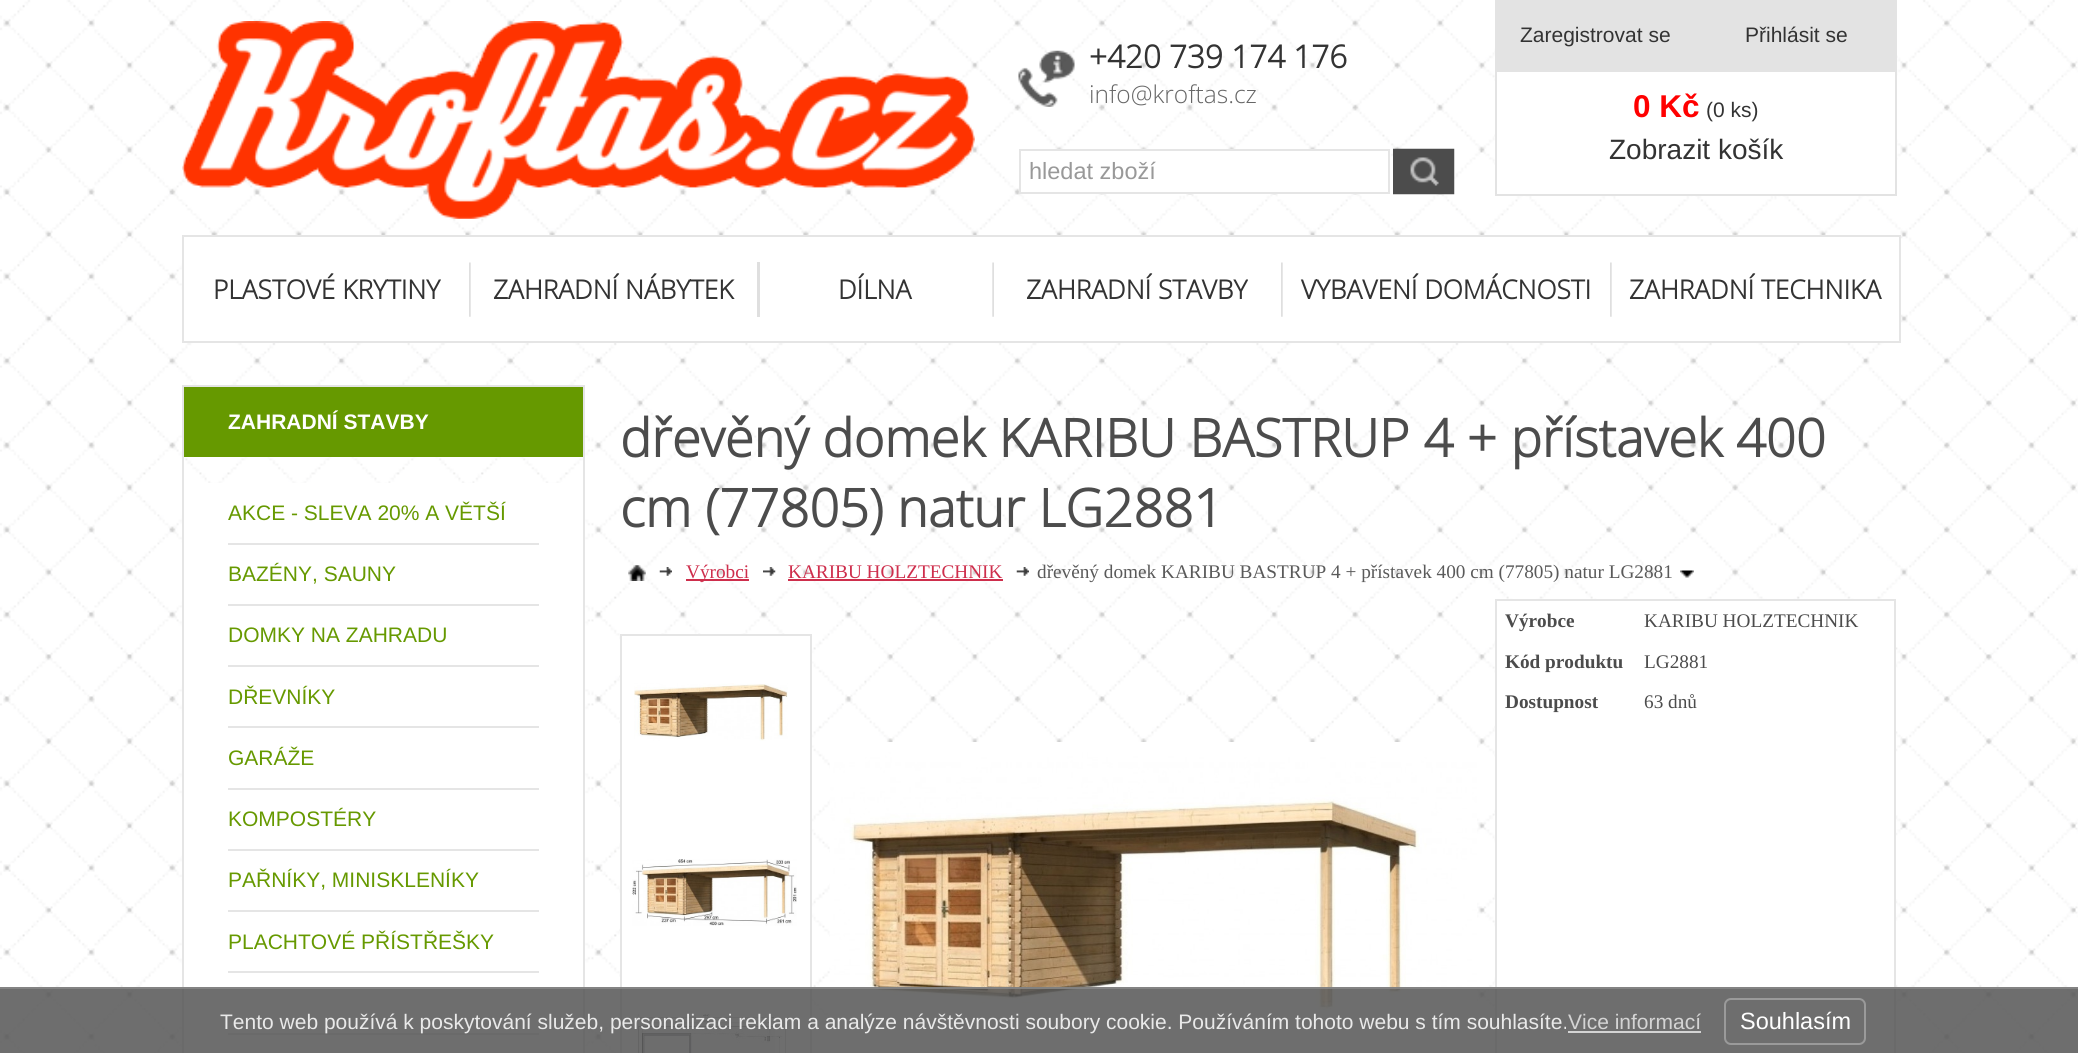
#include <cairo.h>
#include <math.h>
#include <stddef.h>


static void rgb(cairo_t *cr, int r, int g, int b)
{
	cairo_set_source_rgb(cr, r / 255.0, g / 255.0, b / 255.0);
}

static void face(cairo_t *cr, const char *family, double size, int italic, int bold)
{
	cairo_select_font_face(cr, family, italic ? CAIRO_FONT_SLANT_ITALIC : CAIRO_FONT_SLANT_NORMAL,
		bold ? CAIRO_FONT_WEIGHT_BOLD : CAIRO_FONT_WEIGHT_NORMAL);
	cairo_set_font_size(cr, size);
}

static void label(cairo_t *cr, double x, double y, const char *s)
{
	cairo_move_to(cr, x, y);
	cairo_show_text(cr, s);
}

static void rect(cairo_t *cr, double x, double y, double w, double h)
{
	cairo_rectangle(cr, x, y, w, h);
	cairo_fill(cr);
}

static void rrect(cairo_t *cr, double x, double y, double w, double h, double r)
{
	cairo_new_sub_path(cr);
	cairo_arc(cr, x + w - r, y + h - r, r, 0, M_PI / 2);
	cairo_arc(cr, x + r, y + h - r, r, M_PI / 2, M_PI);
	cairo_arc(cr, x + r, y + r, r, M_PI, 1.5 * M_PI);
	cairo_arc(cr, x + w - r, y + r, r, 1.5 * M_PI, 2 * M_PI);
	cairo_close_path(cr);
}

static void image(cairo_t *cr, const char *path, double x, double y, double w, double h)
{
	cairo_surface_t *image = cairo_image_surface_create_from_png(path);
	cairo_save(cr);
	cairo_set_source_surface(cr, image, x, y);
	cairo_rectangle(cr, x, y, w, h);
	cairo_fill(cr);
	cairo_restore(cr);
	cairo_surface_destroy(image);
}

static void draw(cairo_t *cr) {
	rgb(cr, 255, 255, 255);
	cairo_paint(cr);
	image(cr, "image0.png", 0, 0, 2078, 1053);
	image(cr, "image1.png", 182, 21, 793, 198);
	image(cr, "image2.png", 1018, 50, 57, 57);
	face(cr, "Open Sans", 31.5, 0, 1);
	rgb(cr, 51, 51, 51);
	label(cr, 1089, 68, "+420 739 174 176");
	face(cr, "Open Sans Light", 24.5, 0, 0);
	rgb(cr, 102, 102, 102);
	label(cr, 1089, 103, "info@kroftas.cz");
	rgb(cr, 255, 255, 255);
	cairo_rectangle(cr, 1020, 150, 369, 43);
	cairo_fill_preserve(cr);
	rgb(cr, 229, 229, 229);
	cairo_stroke(cr);
	face(cr, "Liberation Sans", 23.5, 0, 0);
	rgb(cr, 153, 153, 153);
	label(cr, 1029, 179, "hledat zboží");
	image(cr, "image3.png", 1393, 148, 62, 47);
	rgb(cr, 227, 227, 227);
	rect(cr, 1495, 0, 402, 70);
	face(cr, "Liberation Sans", 21, 0, 0);
	rgb(cr, 51, 51, 51);
	label(cr, 1520, 42, "Zaregistrovat se");
	label(cr, 1745, 42, "Přihlásit se");
	rgb(cr, 255, 255, 255);
	cairo_rectangle(cr, 1496, 71, 400, 124);
	cairo_fill_preserve(cr);
	rgb(cr, 227, 227, 227);
	cairo_stroke(cr);
	face(cr, "Liberation Sans", 31.5, 0, 1);
	rgb(cr, 255, 0, 0);
	label(cr, 1633, 117, "0 Kč");
	face(cr, "Liberation Sans", 21, 0, 0);
	rgb(cr, 51, 51, 51);
	label(cr, 1706, 117, "(0 ks)");
	face(cr, "Liberation Sans", 28, 0, 0);
	label(cr, 1609, 159, "Zobrazit košík");
	rgb(cr, 255, 255, 255);
	cairo_rectangle(cr, 183, 236, 1717, 106);
	cairo_fill_preserve(cr);
	rgb(cr, 229, 229, 229);
	cairo_stroke(cr);
	face(cr, "Open Sans", 26.25, 0, 1);
	rgb(cr, 51, 51, 51);
	label(cr, 213, 299, "PLASTOVÉ KRYTINY");
	image(cr, "image4.png", 469, 262, 2, 55);
	label(cr, 493, 299, "ZAHRADNÍ NÁBYTEK");
	rgb(cr, 223, 223, 223);
	rect(cr, 757, 262, 3, 55);
	rgb(cr, 51, 51, 51);
	label(cr, 838, 299, "DÍLNA");
	image(cr, "image5.png", 992, 262, 2, 55);
	label(cr, 1026, 299, "ZAHRADNÍ STAVBY");
	image(cr, "image4.png", 1281, 262, 2, 55);
	label(cr, 1301, 299, "VYBAVENÍ DOMÁCNOSTI");
	image(cr, "image4.png", 1610, 262, 2, 55);
	label(cr, 1629, 299, "ZAHRADNÍ TECHNIKA");
	cairo_rectangle(cr, 183, 386, 401, 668);
	rgb(cr, 229, 229, 229);
	cairo_stroke(cr);
	rgb(cr, 102, 153, 0);
	rect(cr, 184, 387, 399, 70);
	face(cr, "Liberation Sans", 21, 0, 1);
	rgb(cr, 255, 255, 255);
	label(cr, 228, 429, "ZAHRADNÍ STAVBY");
	rect(cr, 184, 483, 399, 570);
	face(cr, "Liberation Sans", 21, 0, 0);
	rgb(cr, 102, 153, 0);
	label(cr, 228, 520, "AKCE - SLEVA 20% A VĚTŠÍ");
	rgb(cr, 229, 229, 229);
	rect(cr, 228, 543, 311, 2);
	rgb(cr, 102, 153, 0);
	label(cr, 228, 581, "BAZÉNY, SAUNY");
	rgb(cr, 229, 229, 229);
	rect(cr, 228, 604, 311, 2);
	rgb(cr, 102, 153, 0);
	label(cr, 228, 642, "DOMKY NA ZAHRADU");
	rgb(cr, 229, 229, 229);
	rect(cr, 228, 665, 311, 2);
	rgb(cr, 102, 153, 0);
	label(cr, 228, 704, "DŘEVNÍKY");
	rgb(cr, 229, 229, 229);
	rect(cr, 228, 726, 311, 2);
	rgb(cr, 102, 153, 0);
	label(cr, 228, 765, "GARÁŽE");
	rgb(cr, 229, 229, 229);
	rect(cr, 228, 788, 311, 2);
	rgb(cr, 102, 153, 0);
	label(cr, 228, 826, "KOMPOSTÉRY");
	rgb(cr, 229, 229, 229);
	rect(cr, 228, 849, 311, 2);
	rgb(cr, 102, 153, 0);
	label(cr, 228, 887, "PAŘNÍKY, MINISKLENÍKY");
	rgb(cr, 229, 229, 229);
	rect(cr, 228, 910, 311, 2);
	rgb(cr, 102, 153, 0);
	label(cr, 228, 949, "PLACHTOVÉ PŘÍSTŘEŠKY");
	rgb(cr, 229, 229, 229);
	rect(cr, 228, 971, 311, 2);
	rect(cr, 228, 1033, 311, 2);
	face(cr, "Open Sans", 52.5, 0, 1);
	rgb(cr, 76, 76, 76);
	label(cr, 620, 457, "dřevěný domek KARIBU BASTRUP 4 + přístavek 400");
	label(cr, 620, 527, "cm (77805) natur LG2881");
	image(cr, "image6.png", 628, 565, 18, 16);
	image(cr, "image7.png", 659, 567, 13, 9);
	rgb(cr, 206, 46, 76);
	rect(cr, 686, 579, 63, 2);
	face(cr, "Liberation Serif", 19.25, 0, 0);
	label(cr, 686, 578, "Výrobci");
	image(cr, "image8.png", 763, 567, 13, 9);
	label(cr, 788, 578, "KARIBU HOLZTECHNIK");
	rect(cr, 788, 579, 215, 2);
	image(cr, "image7.png", 1016, 567, 13, 9);
	rgb(cr, 90, 90, 90);
	label(cr, 1037, 578, "dřevěný domek KARIBU BASTRUP 4 + přístavek 400 cm (77805) natur LG2881");
	image(cr, "image9.png", 1680, 570, 14, 8);
	rgb(cr, 255, 255, 255);
	cairo_rectangle(cr, 621, 635, 190, 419);
	cairo_fill_preserve(cr);
	rgb(cr, 229, 229, 229);
	cairo_stroke(cr);
	image(cr, "image10.png", 634, 683, 154, 58);
	image(cr, "image11.png", 632, 859, 165, 67);
	image(cr, "image12.png", 637, 1014, 151, 39);
	image(cr, "image13.png", 830, 742, 647, 311);
	rgb(cr, 255, 255, 255);
	rect(cr, 1497, 601, 397, 452);
	rgb(cr, 229, 229, 229);
	rect(cr, 1495, 599, 400, 2);
	rect(cr, 1894, 599, 2, 454);
	rect(cr, 1495, 599, 2, 454);
	face(cr, "Liberation Serif", 19.25, 0, 1);
	rgb(cr, 76, 76, 76);
	label(cr, 1505, 627, "Výrobce");
	face(cr, "Liberation Serif", 19.25, 0, 0);
	label(cr, 1644, 627, "KARIBU HOLZTECHNIK");
	face(cr, "Liberation Serif", 19.25, 0, 1);
	label(cr, 1505, 668, "Kód produktu");
	face(cr, "Liberation Serif", 19.25, 0, 0);
	label(cr, 1644, 668, "LG2881");
	face(cr, "Liberation Serif", 19.25, 0, 1);
	label(cr, 1505, 708, "Dostupnost");
	face(cr, "Liberation Serif", 19.25, 0, 0);
	label(cr, 1644, 708, "63 dnů");
	cairo_set_source_rgba(cr, 0.333, 0.333, 0.333, 0.85);
	rect(cr, 0, 987, 2078, 66);
	cairo_set_source_rgba(cr, 0.533, 0.533, 0.533, 0.85);
	rect(cr, 0, 987, 2078, 2);
	face(cr, "Liberation Sans", 21, 0, 0);
	rgb(cr, 233, 233, 233);
	label(cr, 220, 1029, "Tento web používá k poskytování služeb, personalizaci reklam a analýze návštěvnosti soubory cookie. Používáním tohoto webu s tím souhlasíte.");
	rgb(cr, 212, 212, 212);
	label(cr, 1568, 1029, "Vice informací");
	rect(cr, 1568, 1031, 133, 2);
	rrect(cr, 1725, 999, 140, 45, 6);
	rgb(cr, 154, 154, 154);
	cairo_stroke(cr);
	face(cr, "Liberation Sans", 23.5, 0, 0);
	rgb(cr, 255, 255, 255);
	label(cr, 1740, 1029, "Souhlasím");
}

int main(void) {
	cairo_surface_t *surface = cairo_image_surface_create(CAIRO_FORMAT_RGB24, 2078, 1053);
	cairo_t *cr = cairo_create(surface);
	cairo_font_options_t *options = cairo_font_options_create();
	cairo_font_options_set_hint_metrics(options, CAIRO_HINT_METRICS_OFF);
	cairo_font_options_set_hint_style(options, CAIRO_HINT_STYLE_NONE);
	cairo_set_font_options(cr, options);
	cairo_set_miter_limit(cr, 4);
	draw(cr);
	cairo_surface_write_to_png(surface, "render.png");
	cairo_font_options_destroy(options);
	cairo_destroy(cr);
	cairo_surface_destroy(surface);
	return 0;
}
